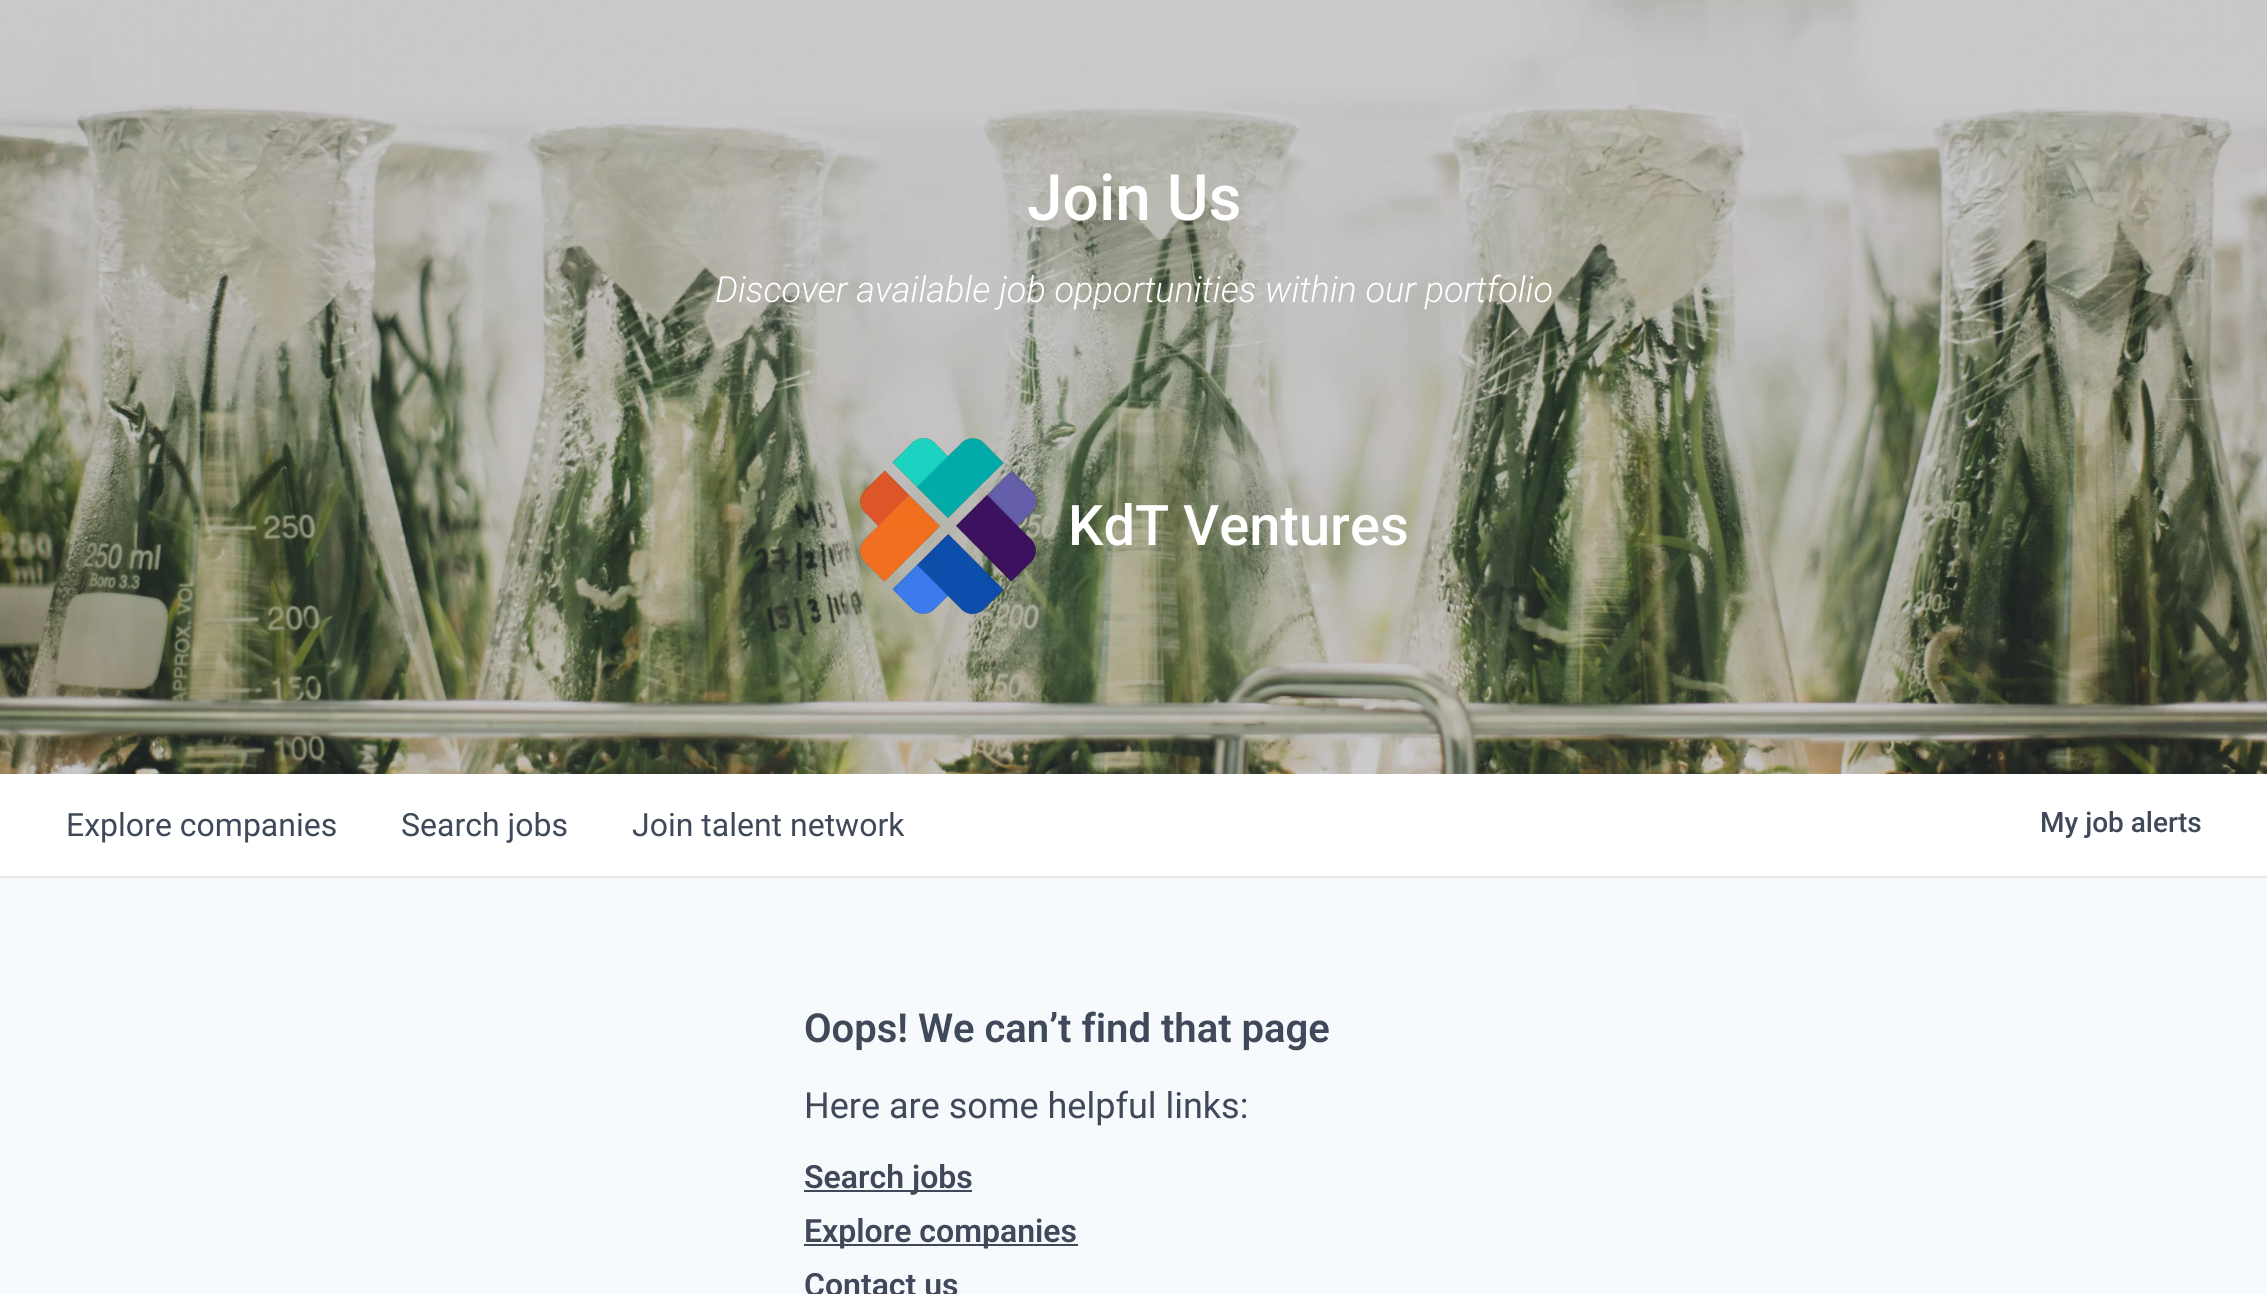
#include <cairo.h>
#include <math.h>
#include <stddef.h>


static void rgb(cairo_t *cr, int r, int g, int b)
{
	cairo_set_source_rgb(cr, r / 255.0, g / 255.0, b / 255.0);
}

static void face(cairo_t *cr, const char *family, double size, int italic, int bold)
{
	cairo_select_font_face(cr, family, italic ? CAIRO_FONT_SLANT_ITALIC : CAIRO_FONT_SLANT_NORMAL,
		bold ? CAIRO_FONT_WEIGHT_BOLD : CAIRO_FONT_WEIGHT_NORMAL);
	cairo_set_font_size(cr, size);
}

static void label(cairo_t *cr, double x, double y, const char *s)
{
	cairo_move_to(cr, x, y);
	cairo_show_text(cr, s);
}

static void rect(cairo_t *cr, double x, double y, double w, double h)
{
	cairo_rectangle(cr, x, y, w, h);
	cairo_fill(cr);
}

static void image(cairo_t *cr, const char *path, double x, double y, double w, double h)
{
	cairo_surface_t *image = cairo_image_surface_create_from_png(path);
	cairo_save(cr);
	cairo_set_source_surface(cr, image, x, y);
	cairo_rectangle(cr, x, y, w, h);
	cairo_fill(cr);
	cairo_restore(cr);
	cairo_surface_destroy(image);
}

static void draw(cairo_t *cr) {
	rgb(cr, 247, 250, 252);
	cairo_paint(cr);
	image(cr, "image0.png", 0, 0, 2267, 774);
	face(cr, "Roboto Medium", 64, 0, 0);
	rgb(cr, 255, 255, 255);
	label(cr, 1027, 220, "Join Us");
	face(cr, "Roboto Light", 36, 1, 0);
	label(cr, 715, 302, "Discover available job opportunities within our portfolio");
	image(cr, "image1.png", 860, 438, 176, 176);
	face(cr, "Roboto Medium", 56, 0, 0);
	label(cr, 1068, 545, "KdT Ventures");
	rgb(cr, 229, 229, 229);
	rect(cr, 0, 876, 2267, 2);
	rgb(cr, 255, 255, 255);
	rect(cr, 0, 774, 2267, 102);
	face(cr, "Roboto", 32, 0, 0);
	rgb(cr, 63, 73, 90);
	label(cr, 66, 836, "Explore companies");
	label(cr, 401, 836, "Search jobs");
	label(cr, 632, 836, "Join talent network");
	face(cr, "Roboto Medium", 28, 0, 0);
	label(cr, 2040, 832, "My job alerts");
	face(cr, "Roboto SemiBold", 40, 0, 0);
	label(cr, 804, 1042, "Oops! We can’t find that page");
	face(cr, "Roboto", 36, 0, 0);
	label(cr, 804, 1118, "Here are some helpful links:");
	rect(cr, 804, 1190, 168, 2);
	face(cr, "Roboto SemiBold", 32, 0, 0);
	label(cr, 804, 1188, "Search jobs");
	rect(cr, 804, 1244, 274, 2);
	label(cr, 804, 1242, "Explore companies");
	label(cr, 804, 1296, "Contact us");
}

int main(void) {
	cairo_surface_t *surface = cairo_image_surface_create(CAIRO_FORMAT_RGB24, 2267, 1294);
	cairo_t *cr = cairo_create(surface);
	cairo_font_options_t *options = cairo_font_options_create();
	cairo_font_options_set_hint_metrics(options, CAIRO_HINT_METRICS_OFF);
	cairo_font_options_set_hint_style(options, CAIRO_HINT_STYLE_NONE);
	cairo_set_font_options(cr, options);
	cairo_set_miter_limit(cr, 4);
	draw(cr);
	cairo_surface_write_to_png(surface, "render.png");
	cairo_font_options_destroy(options);
	cairo_destroy(cr);
	cairo_surface_destroy(surface);
	return 0;
}
